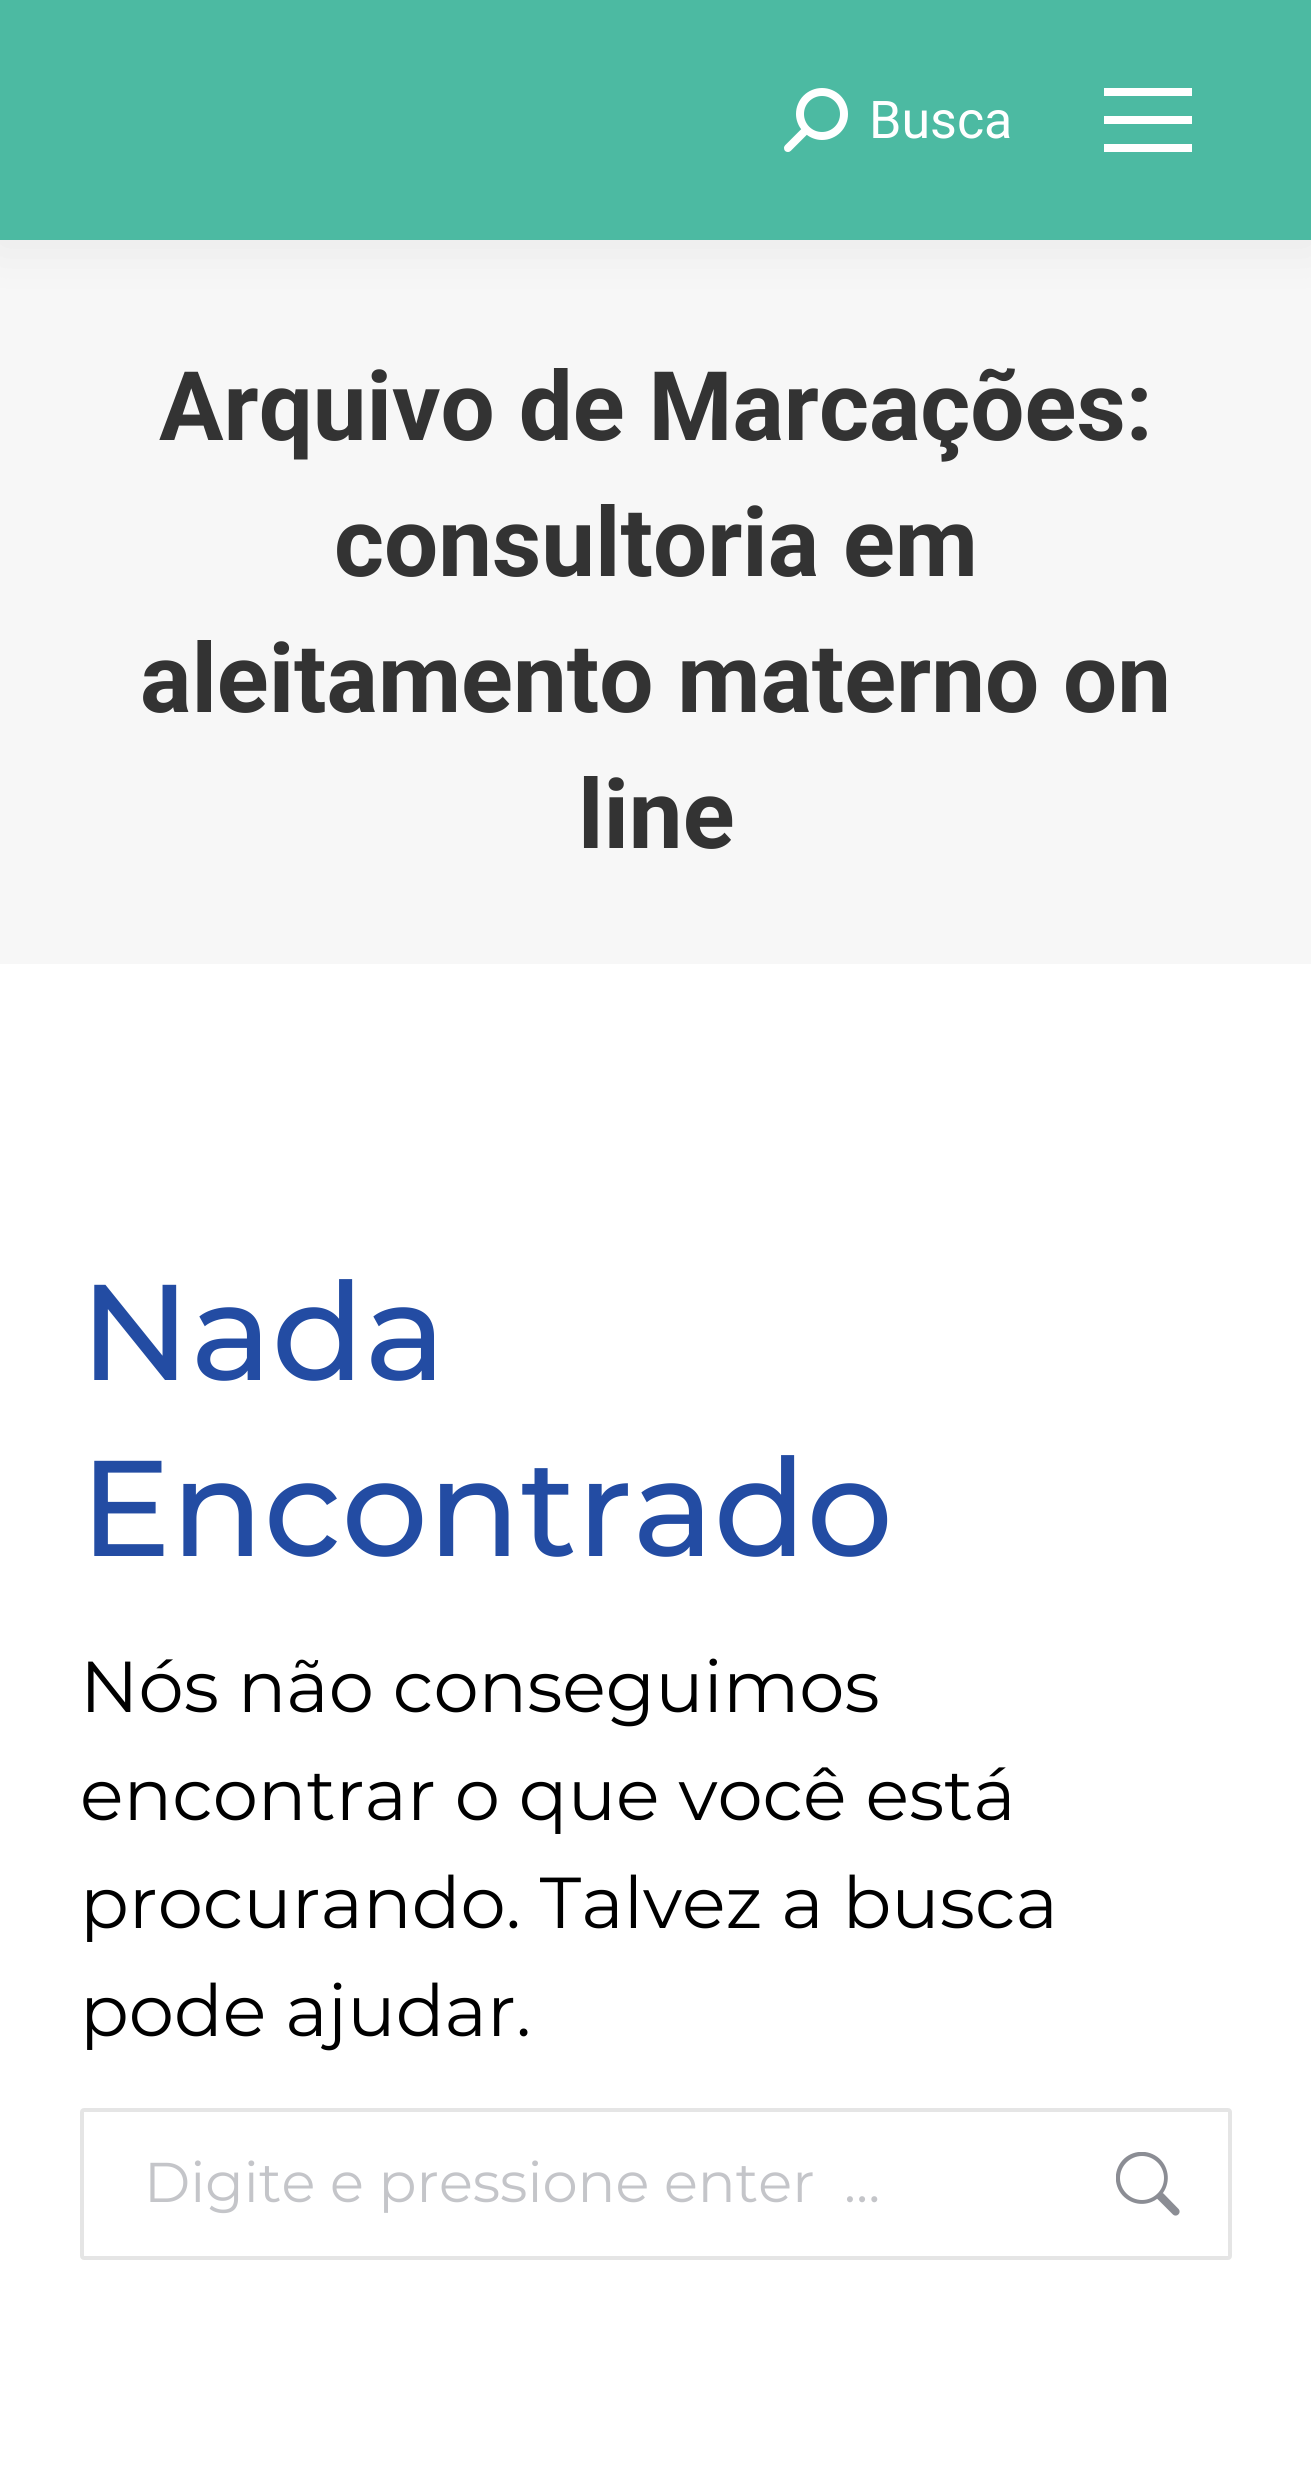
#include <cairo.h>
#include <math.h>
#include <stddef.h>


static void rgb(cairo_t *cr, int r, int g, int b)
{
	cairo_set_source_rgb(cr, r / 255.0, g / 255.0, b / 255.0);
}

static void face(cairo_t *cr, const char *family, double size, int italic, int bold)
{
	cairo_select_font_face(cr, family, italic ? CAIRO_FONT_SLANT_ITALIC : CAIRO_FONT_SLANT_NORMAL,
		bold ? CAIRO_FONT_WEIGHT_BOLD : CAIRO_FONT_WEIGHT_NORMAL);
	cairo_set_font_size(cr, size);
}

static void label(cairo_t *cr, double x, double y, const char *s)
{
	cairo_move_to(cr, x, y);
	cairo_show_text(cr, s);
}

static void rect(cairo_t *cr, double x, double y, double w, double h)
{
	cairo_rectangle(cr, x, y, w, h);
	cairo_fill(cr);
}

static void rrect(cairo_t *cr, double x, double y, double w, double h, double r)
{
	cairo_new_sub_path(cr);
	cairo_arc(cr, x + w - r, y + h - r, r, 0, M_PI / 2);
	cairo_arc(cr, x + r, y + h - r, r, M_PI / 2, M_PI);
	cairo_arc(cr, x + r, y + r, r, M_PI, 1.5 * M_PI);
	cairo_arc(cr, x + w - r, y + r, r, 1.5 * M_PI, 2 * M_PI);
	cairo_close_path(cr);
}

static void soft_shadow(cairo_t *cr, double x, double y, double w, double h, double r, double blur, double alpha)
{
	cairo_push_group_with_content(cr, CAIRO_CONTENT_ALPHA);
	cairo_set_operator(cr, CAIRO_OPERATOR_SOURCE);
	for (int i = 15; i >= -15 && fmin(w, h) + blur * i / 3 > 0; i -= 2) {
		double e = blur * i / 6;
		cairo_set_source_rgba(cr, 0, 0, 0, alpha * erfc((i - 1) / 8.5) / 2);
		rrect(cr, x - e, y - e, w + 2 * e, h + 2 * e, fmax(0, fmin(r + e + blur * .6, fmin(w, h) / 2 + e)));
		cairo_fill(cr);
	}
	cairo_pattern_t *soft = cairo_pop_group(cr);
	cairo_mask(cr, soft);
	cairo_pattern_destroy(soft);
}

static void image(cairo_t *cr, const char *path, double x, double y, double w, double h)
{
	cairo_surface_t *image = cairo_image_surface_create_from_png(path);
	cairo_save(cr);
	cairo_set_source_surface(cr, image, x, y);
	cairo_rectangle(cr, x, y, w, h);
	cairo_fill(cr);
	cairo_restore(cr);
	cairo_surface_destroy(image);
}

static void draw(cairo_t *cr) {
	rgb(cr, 255, 255, 255);
	cairo_paint(cr);
	rgb(cr, 247, 247, 247);
	rect(cr, 0, 240, 1311, 724);
	rgb(cr, 0, 0, 0);
	soft_shadow(cr, -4, -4, 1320, 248, 0, 30, 0.07);
	rgb(cr, 76, 186, 162);
	rect(cr, 0, 0, 1311, 240);
	image(cr, "image0.png", 784, 88, 64, 64);
	face(cr, "Roboto", 52, 0, 0);
	rgb(cr, 255, 255, 255);
	label(cr, 869, 138, "Busca");
	rect(cr, 1104, 88, 88, 8);
	rect(cr, 1104, 116, 88, 8);
	rect(cr, 1104, 144, 88, 8);
	face(cr, "Roboto", 96, 0, 1);
	rgb(cr, 51, 51, 51);
	label(cr, 159, 440, "Arquivo de Marcações:");
	label(cr, 334, 576, "consultoria em");
	label(cr, 140, 712, "aleitamento materno on");
	label(cr, 578, 848, "line");
	face(cr, "Montserrat Medium", 136, 0, 0);
	rgb(cr, 35, 76, 163);
	label(cr, 80, 1380, "Nada");
	label(cr, 80, 1556, "Encontrado");
	face(cr, "Montserrat", 72, 0, 0);
	rgb(cr, 0, 0, 0);
	label(cr, 80, 1712, "Nós não conseguimos");
	label(cr, 80, 1820, "encontrar o que você está");
	label(cr, 80, 1928, "procurando. Talvez a busca");
	label(cr, 80, 2036, "pode ajudar.");
	rrect(cr, 82, 2110, 1148, 148, 2);
	rgb(cr, 229, 229, 229);
	cairo_set_line_width(cr, 4);
	cairo_stroke(cr);
	face(cr, "Montserrat", 56, 0, 0);
	rgb(cr, 196, 197, 201);
	label(cr, 144, 2202, "Digite e pressione enter  …");
	image(cr, "image1.png", 1116, 2152, 64, 64);
}

int main(void) {
	cairo_surface_t *surface = cairo_image_surface_create(CAIRO_FORMAT_RGB24, 1311, 2469);
	cairo_t *cr = cairo_create(surface);
	cairo_font_options_t *options = cairo_font_options_create();
	cairo_font_options_set_hint_metrics(options, CAIRO_HINT_METRICS_OFF);
	cairo_font_options_set_hint_style(options, CAIRO_HINT_STYLE_NONE);
	cairo_set_font_options(cr, options);
	cairo_set_miter_limit(cr, 4);
	draw(cr);
	cairo_surface_write_to_png(surface, "render.png");
	cairo_font_options_destroy(options);
	cairo_destroy(cr);
	cairo_surface_destroy(surface);
	return 0;
}
